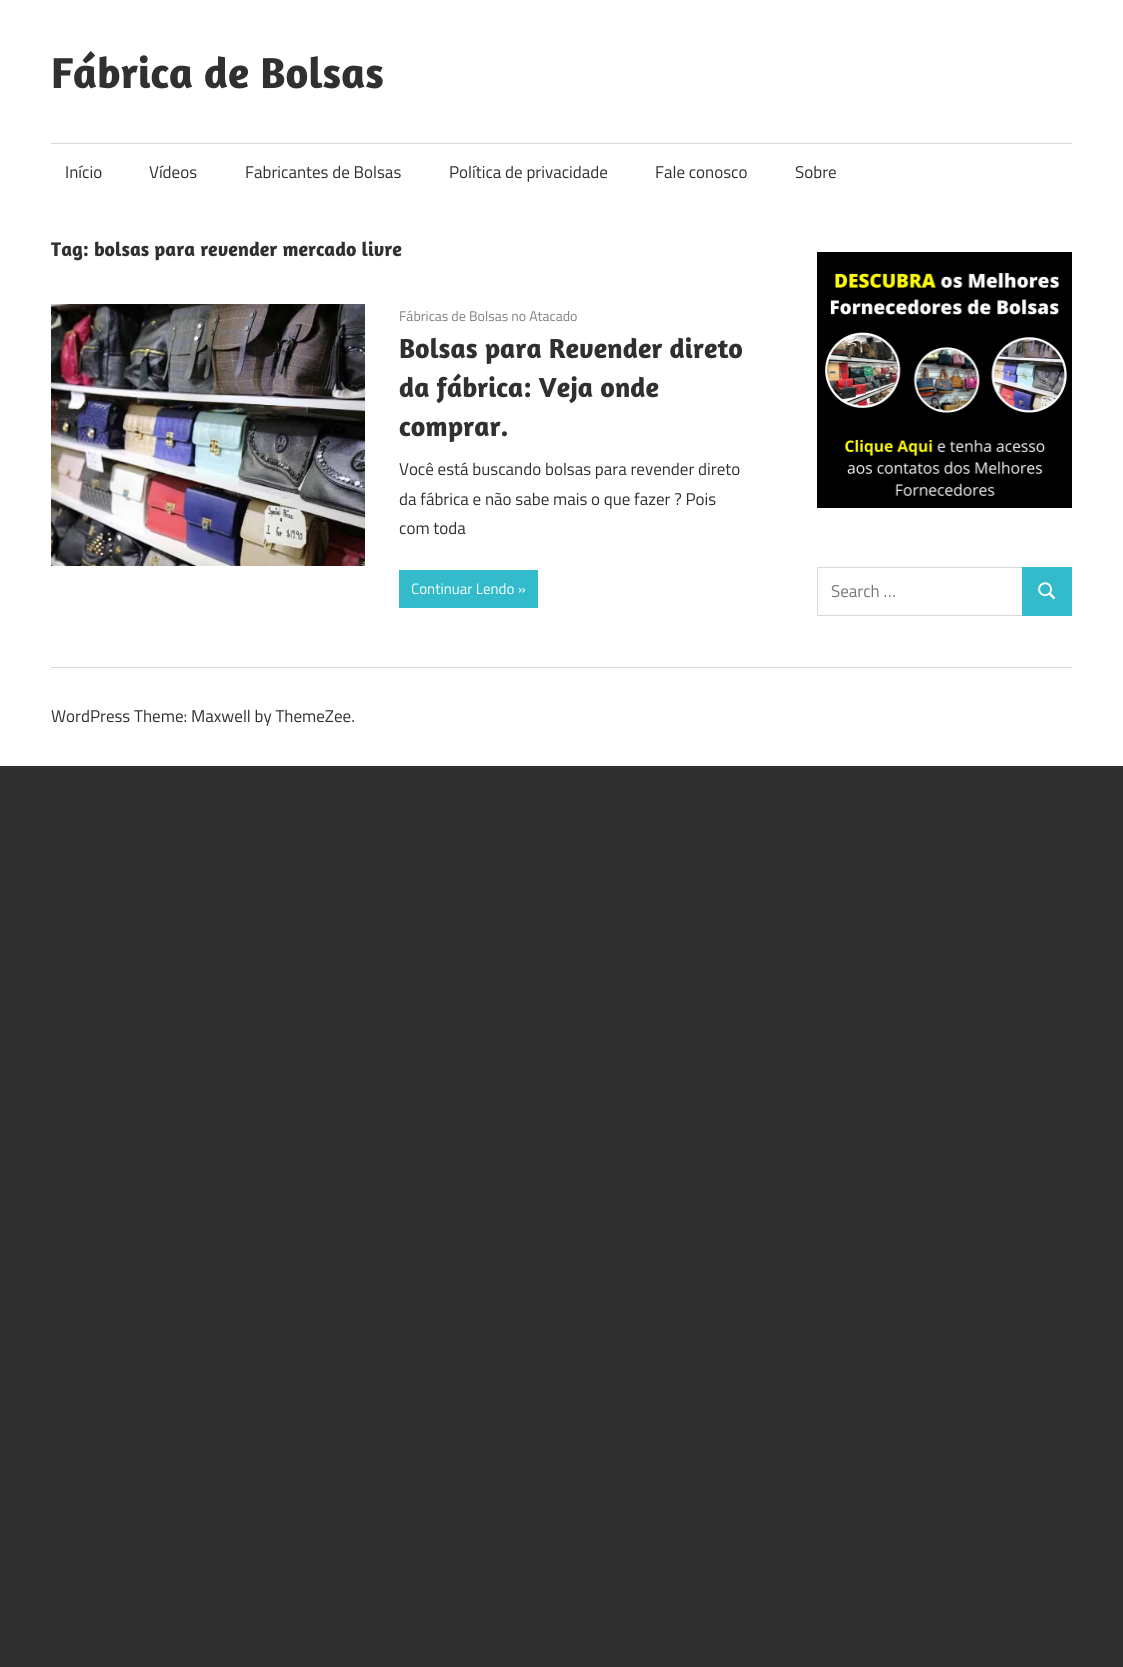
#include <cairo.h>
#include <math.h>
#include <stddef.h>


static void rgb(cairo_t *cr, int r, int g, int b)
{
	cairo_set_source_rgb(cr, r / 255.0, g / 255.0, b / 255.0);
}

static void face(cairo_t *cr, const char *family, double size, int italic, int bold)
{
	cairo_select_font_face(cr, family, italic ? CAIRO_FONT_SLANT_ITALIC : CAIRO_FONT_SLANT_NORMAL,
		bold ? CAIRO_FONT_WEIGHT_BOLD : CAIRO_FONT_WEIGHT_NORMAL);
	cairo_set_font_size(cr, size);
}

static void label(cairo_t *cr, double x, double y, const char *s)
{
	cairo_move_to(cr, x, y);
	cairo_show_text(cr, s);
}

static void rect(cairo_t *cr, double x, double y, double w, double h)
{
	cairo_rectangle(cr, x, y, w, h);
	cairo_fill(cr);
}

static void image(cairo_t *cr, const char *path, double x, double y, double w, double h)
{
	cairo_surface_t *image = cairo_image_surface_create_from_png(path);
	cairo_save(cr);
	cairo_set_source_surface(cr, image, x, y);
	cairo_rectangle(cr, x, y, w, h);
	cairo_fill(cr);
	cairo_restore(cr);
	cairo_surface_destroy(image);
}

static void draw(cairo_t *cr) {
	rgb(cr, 48, 48, 48);
	cairo_paint(cr);
	rgb(cr, 255, 255, 255);
	rect(cr, 0, 0, 1123, 766);
	face(cr, "Amaranth", 44, 0, 1);
	rgb(cr, 48, 48, 48);
	label(cr, 51, 88, "Fábrica de Bolsas");
	rgb(cr, 217, 217, 217);
	rect(cr, 51, 143, 1021, 1);
	face(cr, "Titillium Web", 17, 0, 0);
	rgb(cr, 48, 48, 48);
	label(cr, 65, 178, "Início");
	label(cr, 149, 178, "Vídeos");
	label(cr, 245, 178, "Fabricantes de Bolsas");
	label(cr, 449, 178, "Política de privacidade");
	label(cr, 655, 178, "Fale conosco");
	label(cr, 795, 178, "Sobre");
	face(cr, "Amaranth", 20, 0, 1);
	label(cr, 51, 256, "Tag: bolsas para revender mercado livre");
	image(cr, "image0.png", 51, 304, 314, 262);
	face(cr, "Titillium Web", 14, 0, 0);
	rgb(cr, 128, 128, 128);
	label(cr, 399, 321, "Fábricas de Bolsas no Atacado");
	face(cr, "Amaranth", 28, 0, 1);
	rgb(cr, 48, 48, 48);
	label(cr, 399, 358, "Bolsas para Revender direto");
	label(cr, 399, 397, "da fábrica: Veja onde");
	label(cr, 399, 436, "comprar.");
	face(cr, "Titillium Web", 17, 0, 0);
	label(cr, 399, 475, "Você está buscando bolsas para revender direto");
	label(cr, 399, 505, "da fábrica e não sabe mais o que fazer ? Pois");
	label(cr, 399, 534, "com toda");
	rgb(cr, 51, 187, 204);
	rect(cr, 399, 570, 139, 38);
	face(cr, "Titillium Web", 15, 0, 0);
	rgb(cr, 255, 255, 255);
	label(cr, 411, 594, "Continuar Lendo »");
	image(cr, "image1.png", 817, 252, 255, 256);
	cairo_rectangle(cr, 817.5, 567.5, 205, 48);
	rgb(cr, 217, 217, 217);
	cairo_set_line_width(cr, 1);
	cairo_stroke(cr);
	face(cr, "Titillium Web", 17, 0, 0);
	rgb(cr, 117, 117, 117);
	label(cr, 831, 597, "Search …");
	rgb(cr, 51, 187, 204);
	rect(cr, 1022, 567, 50, 49);
	image(cr, "image2.png", 1038, 582, 18, 18);
	rgb(cr, 217, 217, 217);
	rect(cr, 51, 667, 1021, 1);
	rgb(cr, 48, 48, 48);
	label(cr, 51, 722, "WordPress Theme: Maxwell by ThemeZee.");
}

int main(void) {
	cairo_surface_t *surface = cairo_image_surface_create(CAIRO_FORMAT_RGB24, 1123, 1667);
	cairo_t *cr = cairo_create(surface);
	cairo_font_options_t *options = cairo_font_options_create();
	cairo_font_options_set_hint_metrics(options, CAIRO_HINT_METRICS_OFF);
	cairo_font_options_set_hint_style(options, CAIRO_HINT_STYLE_NONE);
	cairo_set_font_options(cr, options);
	cairo_set_miter_limit(cr, 4);
	draw(cr);
	cairo_surface_write_to_png(surface, "render.png");
	cairo_font_options_destroy(options);
	cairo_destroy(cr);
	cairo_surface_destroy(surface);
	return 0;
}
